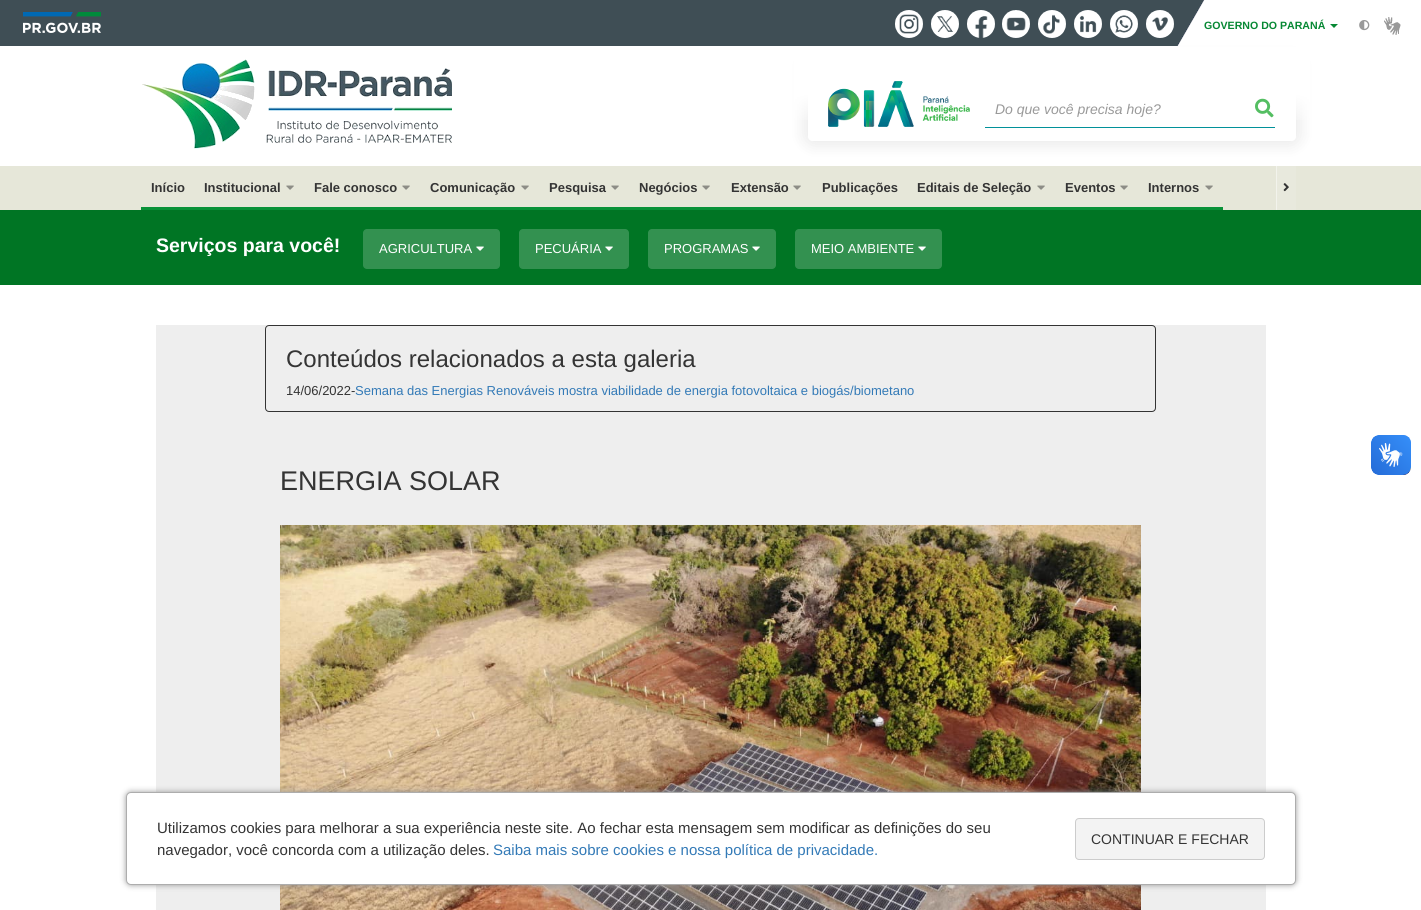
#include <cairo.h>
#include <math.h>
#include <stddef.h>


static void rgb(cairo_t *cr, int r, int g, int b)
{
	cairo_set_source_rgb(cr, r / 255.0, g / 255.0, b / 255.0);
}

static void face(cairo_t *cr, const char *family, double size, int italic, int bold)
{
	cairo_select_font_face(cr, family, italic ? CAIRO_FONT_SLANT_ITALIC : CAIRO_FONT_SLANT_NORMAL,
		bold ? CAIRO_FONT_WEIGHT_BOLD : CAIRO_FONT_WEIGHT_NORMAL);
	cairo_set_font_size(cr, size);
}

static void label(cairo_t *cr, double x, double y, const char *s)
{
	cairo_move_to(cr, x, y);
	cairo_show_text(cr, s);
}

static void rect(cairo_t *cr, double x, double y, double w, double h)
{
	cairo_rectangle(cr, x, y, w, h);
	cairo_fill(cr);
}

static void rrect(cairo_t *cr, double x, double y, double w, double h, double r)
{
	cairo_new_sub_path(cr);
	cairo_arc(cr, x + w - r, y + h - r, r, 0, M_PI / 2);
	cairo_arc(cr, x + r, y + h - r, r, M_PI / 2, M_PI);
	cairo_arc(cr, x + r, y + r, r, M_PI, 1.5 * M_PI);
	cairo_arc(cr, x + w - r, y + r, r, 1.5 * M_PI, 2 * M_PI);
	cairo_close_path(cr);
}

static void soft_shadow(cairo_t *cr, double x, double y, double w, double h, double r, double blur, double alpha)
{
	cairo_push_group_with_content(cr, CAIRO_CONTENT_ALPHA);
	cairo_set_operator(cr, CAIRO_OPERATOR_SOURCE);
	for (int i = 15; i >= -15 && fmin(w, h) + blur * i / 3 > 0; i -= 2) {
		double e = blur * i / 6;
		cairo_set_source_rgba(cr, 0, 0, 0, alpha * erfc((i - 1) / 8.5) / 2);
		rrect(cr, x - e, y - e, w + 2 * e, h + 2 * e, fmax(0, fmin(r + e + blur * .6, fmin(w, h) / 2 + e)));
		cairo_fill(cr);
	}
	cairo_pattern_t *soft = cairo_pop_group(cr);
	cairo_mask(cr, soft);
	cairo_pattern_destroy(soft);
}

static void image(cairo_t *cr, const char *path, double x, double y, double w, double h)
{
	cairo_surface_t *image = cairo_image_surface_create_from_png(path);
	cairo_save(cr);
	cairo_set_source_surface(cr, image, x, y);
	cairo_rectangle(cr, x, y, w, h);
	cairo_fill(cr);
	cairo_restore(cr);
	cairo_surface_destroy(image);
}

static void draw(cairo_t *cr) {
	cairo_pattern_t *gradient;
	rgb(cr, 0, 117, 36);
	cairo_paint(cr);
	rgb(cr, 63, 78, 85);
	rect(cr, 0, 0, 1177, 46);
	image(cr, "image0.png", 1177, 0, 244, 46);
	image(cr, "image1.png", 23, 12, 78, 21);
	image(cr, "image2.png", 895, 10, 28, 28);
	image(cr, "image3.png", 931, 10, 28, 28);
	image(cr, "image4.png", 967, 10, 28, 28);
	image(cr, "image5.png", 1002, 10, 28, 28);
	image(cr, "image6.png", 1038, 10, 28, 28);
	image(cr, "image7.png", 1074, 10, 28, 28);
	image(cr, "image8.png", 1110, 10, 28, 28);
	image(cr, "image9.png", 1146, 10, 28, 28);
	face(cr, "Liberation Sans", 10.6, 0, 1);
	rgb(cr, 6, 136, 51);
	label(cr, 1204, 29, "GOVERNO DO PARANÁ");
	cairo_new_path(cr);
	cairo_move_to(cr, 1330, 24);
	cairo_line_to(cr, 1338, 24);
	cairo_line_to(cr, 1334, 28);
	cairo_close_path(cr);
	cairo_fill(cr);
	image(cr, "image10.png", 1359, 20, 11, 11);
	image(cr, "image11.png", 1384, 17, 17, 18);
	rgb(cr, 255, 255, 255);
	rect(cr, 0, 46, 1421, 120);
	image(cr, "image12.png", 142, 59, 310, 90);
	rgb(cr, 230, 231, 217);
	rect(cr, 0, 166, 1421, 44);
	cairo_save(cr);
	cairo_set_fill_rule(cr, CAIRO_FILL_RULE_EVEN_ODD);
	cairo_new_path(cr);
	cairo_move_to(cr, 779, 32);
	cairo_line_to(cr, 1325, 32);
	cairo_line_to(cr, 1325, 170);
	cairo_line_to(cr, 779, 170);
	cairo_close_path(cr);
	cairo_move_to(cr, 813, 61);
	cairo_line_to(cr, 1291, 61);
	cairo_curve_to(cr, 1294, 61, 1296, 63, 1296, 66);
	cairo_line_to(cr, 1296, 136);
	cairo_curve_to(cr, 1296, 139, 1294, 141, 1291, 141);
	cairo_line_to(cr, 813, 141);
	cairo_curve_to(cr, 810, 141, 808, 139, 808, 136);
	cairo_line_to(cr, 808, 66);
	cairo_curve_to(cr, 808, 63, 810, 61, 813, 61);
	cairo_close_path(cr);
	cairo_clip(cr);
	rgb(cr, 0, 0, 0);
	soft_shadow(cr, 803, 56, 498, 90, 10, 7.5, 0.08);
	cairo_restore(cr);
	gradient = cairo_pattern_create_linear(1061, 46, 1061, 126);
	cairo_pattern_add_color_stop_rgba(gradient, 0, 1, 1, 1, 1);
	cairo_pattern_add_color_stop_rgba(gradient, 0.6, 1, 1, 1, 1);
	cairo_pattern_add_color_stop_rgba(gradient, 1, 1, 1, 1, 0);
	cairo_set_source(cr, gradient);
	cairo_pattern_destroy(gradient);
	rect(cr, 794, 47, 516, 73);
	image(cr, "image13.png", 828, 81, 142, 46);
	rgb(cr, 1, 145, 154);
	rect(cr, 985, 127, 290, 1);
	face(cr, "Liberation Sans", 14, 1, 0);
	rgb(cr, 153, 153, 153);
	label(cr, 995, 114, "Do que você precisa hoje?");
	image(cr, "image14.png", 1255, 98, 19, 20);
	face(cr, "Liberation Sans", 13, 0, 1);
	rgb(cr, 52, 52, 52);
	label(cr, 151, 192, "Início");
	rgb(cr, 9, 146, 56);
	rect(cr, 141, 207, 1082, 3);
	rgb(cr, 52, 52, 52);
	label(cr, 204, 192, "Institucional");
	image(cr, "image15.png", 286, 185, 8, 5);
	label(cr, 314, 192, "Fale conosco");
	image(cr, "image15.png", 402, 185, 8, 5);
	label(cr, 430, 192, "Comunicação");
	image(cr, "image15.png", 521, 185, 8, 5);
	label(cr, 549, 192, "Pesquisa");
	image(cr, "image15.png", 611, 185, 8, 5);
	label(cr, 639, 192, "Negócios");
	image(cr, "image15.png", 702, 185, 8, 5);
	label(cr, 731, 192, "Extensão");
	image(cr, "image15.png", 793, 185, 8, 5);
	label(cr, 822, 192, "Publicações");
	label(cr, 917, 192, "Editais de Seleção");
	image(cr, "image15.png", 1037, 185, 8, 5);
	label(cr, 1065, 192, "Eventos");
	image(cr, "image15.png", 1120, 185, 8, 5);
	label(cr, 1148, 192, "Internos");
	image(cr, "image15.png", 1205, 185, 8, 5);
	rgb(cr, 242, 243, 236);
	rect(cr, 1276, 166, 1, 44);
	rgb(cr, 232, 233, 221);
	rect(cr, 1277, 166, 19, 44);
	image(cr, "image16.png", 1283, 183, 6, 9);
	face(cr, "Liberation Sans", 19.5, 0, 1);
	rgb(cr, 255, 255, 255);
	label(cr, 156, 252, "Serviços para você!");
	rgb(cr, 51, 145, 80);
	rrect(cr, 363, 229, 137, 40, 4);
	cairo_fill(cr);
	face(cr, "Liberation Sans", 13, 0, 0);
	rgb(cr, 255, 255, 255);
	label(cr, 379, 253, "AGRICULTURA");
	image(cr, "image17.png", 476, 246, 8, 5);
	rgb(cr, 51, 145, 80);
	rrect(cr, 519, 229, 110, 40, 4);
	cairo_fill(cr);
	rgb(cr, 255, 255, 255);
	label(cr, 535, 253, "PECUÁRIA");
	image(cr, "image17.png", 605, 246, 8, 5);
	rgb(cr, 51, 145, 80);
	rrect(cr, 648, 229, 128, 40, 4);
	cairo_fill(cr);
	rgb(cr, 255, 255, 255);
	label(cr, 664, 253, "PROGRAMAS");
	image(cr, "image17.png", 752, 246, 8, 5);
	rgb(cr, 51, 145, 80);
	rrect(cr, 795, 229, 147, 40, 4);
	cairo_fill(cr);
	rgb(cr, 255, 255, 255);
	label(cr, 811, 253, "MEIO AMBIENTE");
	image(cr, "image17.png", 918, 246, 8, 5);
	rect(cr, 0, 285, 1421, 625);
	rgb(cr, 238, 238, 238);
	rect(cr, 156, 325, 1110, 585);
	rrect(cr, 265.5, 325.5, 890, 86, 3.5);
	rgb(cr, 51, 51, 51);
	cairo_set_line_width(cr, 1);
	cairo_stroke(cr);
	face(cr, "Liberation Sans", 24, 0, 0);
	rgb(cr, 52, 52, 52);
	label(cr, 286, 367, "Conteúdos relacionados a esta galeria");
	face(cr, "Liberation Sans", 13, 0, 0);
	label(cr, 286, 395, "14/06/2022-");
	rgb(cr, 51, 122, 183);
	label(cr, 355, 395, "Semana das Energias Renováveis mostra viabilidade de energia fotovoltaica e biogás/biometano");
	face(cr, "Liberation Sans", 27, 0, 0);
	rgb(cr, 52, 52, 52);
	label(cr, 280, 490, "ENERGIA SOLAR");
	image(cr, "image18.png", 280, 525, 861, 385);
	image(cr, "image19.png", 1371, 435, 40, 40);
	image(cr, "image20.png", 1371, 435, 40, 40);
	rgb(cr, 153, 153, 153);
	soft_shadow(cr, 126, 792, 1170, 93, 5, 3, 1);
	rgb(cr, 255, 255, 255);
	rrect(cr, 126.5, 792.5, 1169, 92, 4.5);
	cairo_fill_preserve(cr);
	rgb(cr, 173, 173, 173);
	cairo_stroke(cr);
	face(cr, "Liberation Sans", 15, 0, 0);
	rgb(cr, 52, 52, 52);
	label(cr, 157, 833, "Utilizamos cookies para melhorar a sua experiência neste site. Ao fechar esta mensagem sem modificar as definições do seu");
	label(cr, 157, 855, "navegador, você concorda com a utilização deles.");
	rgb(cr, 51, 122, 183);
	label(cr, 493, 855, "Saiba mais sobre cookies e nossa política de privacidade.");
	rgb(cr, 243, 243, 243);
	rrect(cr, 1075.5, 818.5, 189, 41, 3.5);
	cairo_fill_preserve(cr);
	rgb(cr, 204, 204, 204);
	cairo_stroke(cr);
	face(cr, "Liberation Sans", 14, 0, 0);
	rgb(cr, 52, 52, 52);
	label(cr, 1091, 844, "CONTINUAR E FECHAR");
}

int main(void) {
	cairo_surface_t *surface = cairo_image_surface_create(CAIRO_FORMAT_RGB24, 1421, 910);
	cairo_t *cr = cairo_create(surface);
	cairo_font_options_t *options = cairo_font_options_create();
	cairo_font_options_set_hint_metrics(options, CAIRO_HINT_METRICS_OFF);
	cairo_font_options_set_hint_style(options, CAIRO_HINT_STYLE_NONE);
	cairo_set_font_options(cr, options);
	cairo_set_miter_limit(cr, 4);
	draw(cr);
	cairo_surface_write_to_png(surface, "render.png");
	cairo_font_options_destroy(options);
	cairo_destroy(cr);
	cairo_surface_destroy(surface);
	return 0;
}
